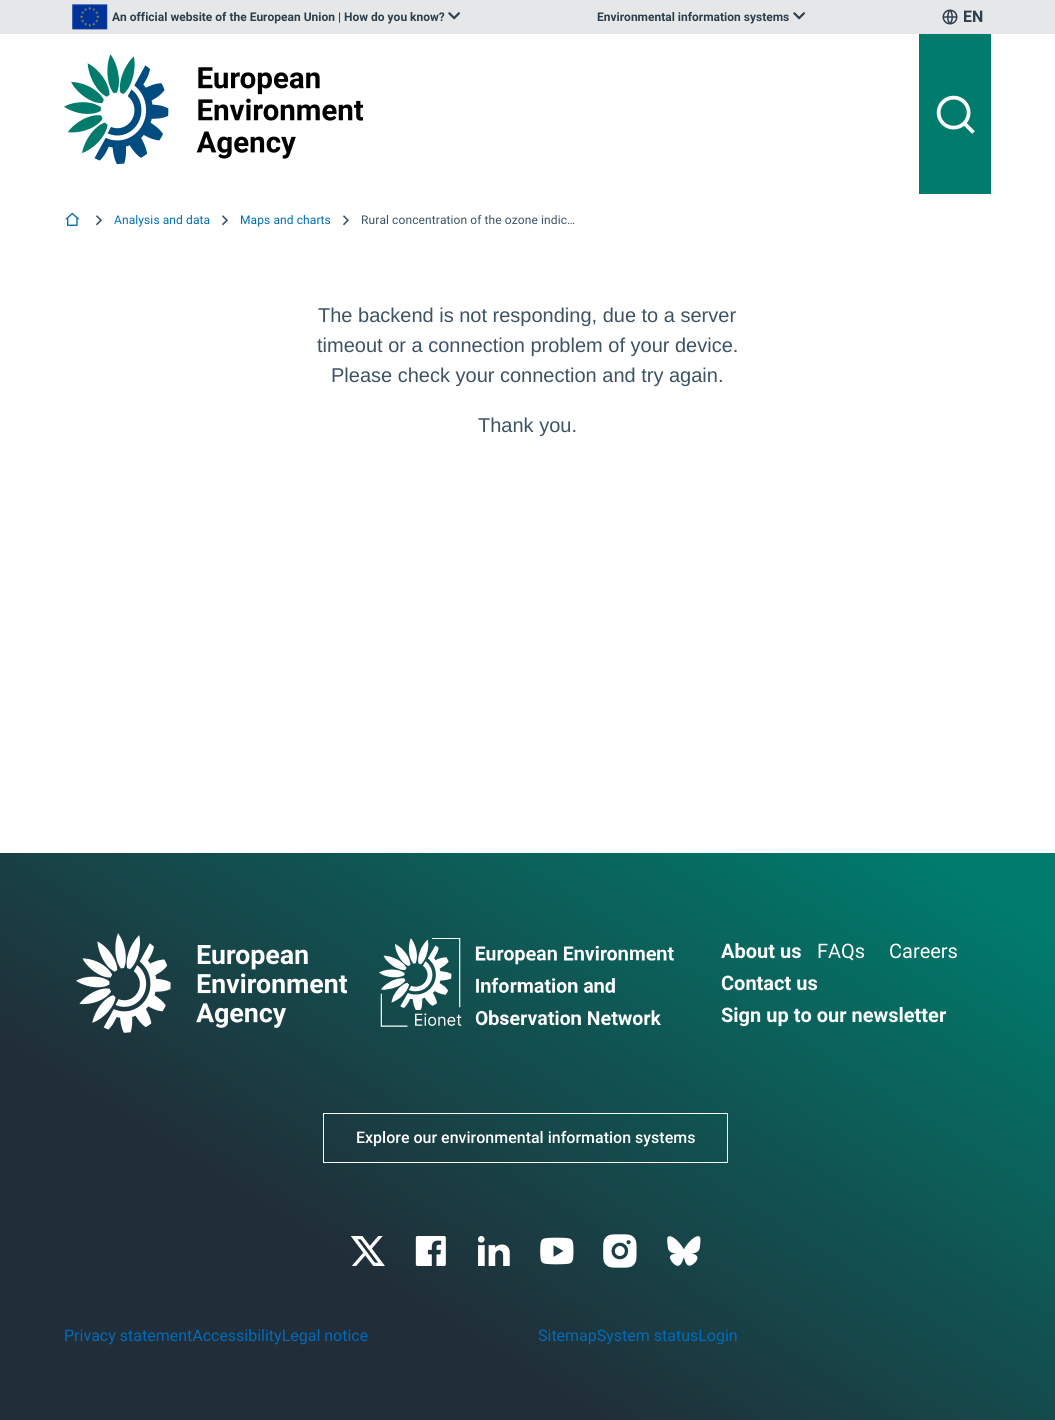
#include <cairo.h>
#include <math.h>
#include <stddef.h>


static void rgb(cairo_t *cr, int r, int g, int b)
{
	cairo_set_source_rgb(cr, r / 255.0, g / 255.0, b / 255.0);
}

static void face(cairo_t *cr, const char *family, double size, int italic, int bold)
{
	cairo_select_font_face(cr, family, italic ? CAIRO_FONT_SLANT_ITALIC : CAIRO_FONT_SLANT_NORMAL,
		bold ? CAIRO_FONT_WEIGHT_BOLD : CAIRO_FONT_WEIGHT_NORMAL);
	cairo_set_font_size(cr, size);
}

static void label(cairo_t *cr, double x, double y, const char *s)
{
	cairo_move_to(cr, x, y);
	cairo_show_text(cr, s);
}

static void tracked(cairo_t *cr, double x, double y, const char *s, double letter, double word)
{
	cairo_move_to(cr, x, y);
	while (*s) {
		char ch[5] = {0};
		int n = 0;
		do ch[n++] = *s++; while ((*s & 0xC0) == 0x80);
		cairo_show_text(cr, ch);
		cairo_rel_move_to(cr, letter + word * (*ch == ' '), 0);
	}
}

static void rect(cairo_t *cr, double x, double y, double w, double h)
{
	cairo_rectangle(cr, x, y, w, h);
	cairo_fill(cr);
}

static void image(cairo_t *cr, const char *path, double x, double y, double w, double h)
{
	cairo_surface_t *image = cairo_image_surface_create_from_png(path);
	cairo_save(cr);
	cairo_set_source_surface(cr, image, x, y);
	cairo_rectangle(cr, x, y, w, h);
	cairo_fill(cr);
	cairo_restore(cr);
	cairo_surface_destroy(image);
}

static void draw(cairo_t *cr) {
	cairo_pattern_t *gradient;
	rgb(cr, 255, 255, 255);
	cairo_paint(cr);
	rgb(cr, 230, 231, 232);
	rect(cr, 0, 0, 1055, 34);
	image(cr, "image0.png", 72, 4, 36, 26);
	face(cr, "Roboto", 12, 0, 1);
	rgb(cr, 46, 62, 76);
	label(cr, 112, 21, "An official website of the European Union | How do you know?");
	image(cr, "image1.png", 448, 12, 12, 8);
	label(cr, 597, 21, "Environmental information systems");
	image(cr, "image1.png", 793, 12, 12, 8);
	image(cr, "image2.png", 942, 9, 16, 16);
	face(cr, "Roboto", 16, 0, 1);
	label(cr, 963, 22, "EN");
	image(cr, "image3.png", 64, 54, 299, 110);
	rgb(cr, 0, 123, 108);
	rect(cr, 919, 34, 72, 160);
	image(cr, "image4.png", 936, 95, 39, 39);
	image(cr, "image5.png", 65, 212, 15, 14);
	image(cr, "image6.png", 96, 215, 6, 11);
	face(cr, "Roboto", 12, 0, 0);
	rgb(cr, 0, 107, 184);
	tracked(cr, 114, 224, "Analysis and data", 0.1, 0);
	image(cr, "image6.png", 222, 215, 6, 11);
	tracked(cr, 240, 224, "Maps and charts", 0.1, 0);
	image(cr, "image6.png", 343, 215, 6, 11);
	rgb(cr, 61, 82, 101);
	tracked(cr, 361, 224, "Rural concentration of the ozone indic…", 0.1, 0);
	face(cr, "Liberation Sans", 20, 0, 0);
	label(cr, 318, 322, "The backend is not responding, due to a server");
	label(cr, 317, 352, "timeout or a connection problem of your device.");
	label(cr, 331, 382, "Please check your connection and try again.");
	label(cr, 478, 432, "Thank you.");
	gradient = cairo_pattern_create_linear(806, 696, 249, 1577);
	cairo_pattern_add_color_stop_rgba(gradient, 0.07, 0, 0.482, 0.424, 1);
	cairo_pattern_add_color_stop_rgba(gradient, 0.7, 0.129, 0.176, 0.22, 1);
	cairo_pattern_add_color_stop_rgba(gradient, 0.98, 0.129, 0.176, 0.22, 1);
	cairo_set_source(cr, gradient);
	cairo_pattern_destroy(gradient);
	rect(cr, 0, 853, 1055, 567);
	image(cr, "image7.png", 76, 933, 271, 100);
	image(cr, "image8.png", 379, 938, 295, 89);
	face(cr, "Roboto", 20, 0, 1);
	rgb(cr, 255, 255, 255);
	label(cr, 721, 958, "About us");
	face(cr, "Roboto", 20, 0, 0);
	label(cr, 817, 958, "FAQs");
	label(cr, 889, 958, "Careers");
	face(cr, "Roboto", 20, 0, 1);
	label(cr, 721, 990, "Contact us");
	label(cr, 721, 1022, "Sign up to our newsletter");
	cairo_rectangle(cr, 323.5, 1113.5, 404, 49);
	cairo_set_line_width(cr, 1);
	cairo_stroke(cr);
	face(cr, "Roboto Medium", 16, 0, 0);
	label(cr, 356, 1143, "Explore our environmental information systems");
	image(cr, "image9.png", 350, 1236, 35, 30);
	image(cr, "image10.png", 415, 1236, 31, 30);
	image(cr, "image11.png", 478, 1236, 32, 30);
	image(cr, "image12.png", 540, 1237, 34, 28);
	image(cr, "image13.png", 603, 1234, 34, 34);
	image(cr, "image14.png", 667, 1236, 34, 30);
	face(cr, "Roboto", 16, 0, 0);
	rgb(cr, 0, 107, 184);
	label(cr, 64, 1341, "Privacy statementAccessibilityLegal notice");
	label(cr, 538, 1341, "SitemapSystem statusLogin");
}

int main(void) {
	cairo_surface_t *surface = cairo_image_surface_create(CAIRO_FORMAT_RGB24, 1055, 1420);
	cairo_t *cr = cairo_create(surface);
	cairo_font_options_t *options = cairo_font_options_create();
	cairo_font_options_set_hint_metrics(options, CAIRO_HINT_METRICS_OFF);
	cairo_font_options_set_hint_style(options, CAIRO_HINT_STYLE_NONE);
	cairo_set_font_options(cr, options);
	cairo_set_miter_limit(cr, 4);
	draw(cr);
	cairo_surface_write_to_png(surface, "render.png");
	cairo_font_options_destroy(options);
	cairo_destroy(cr);
	cairo_surface_destroy(surface);
	return 0;
}
